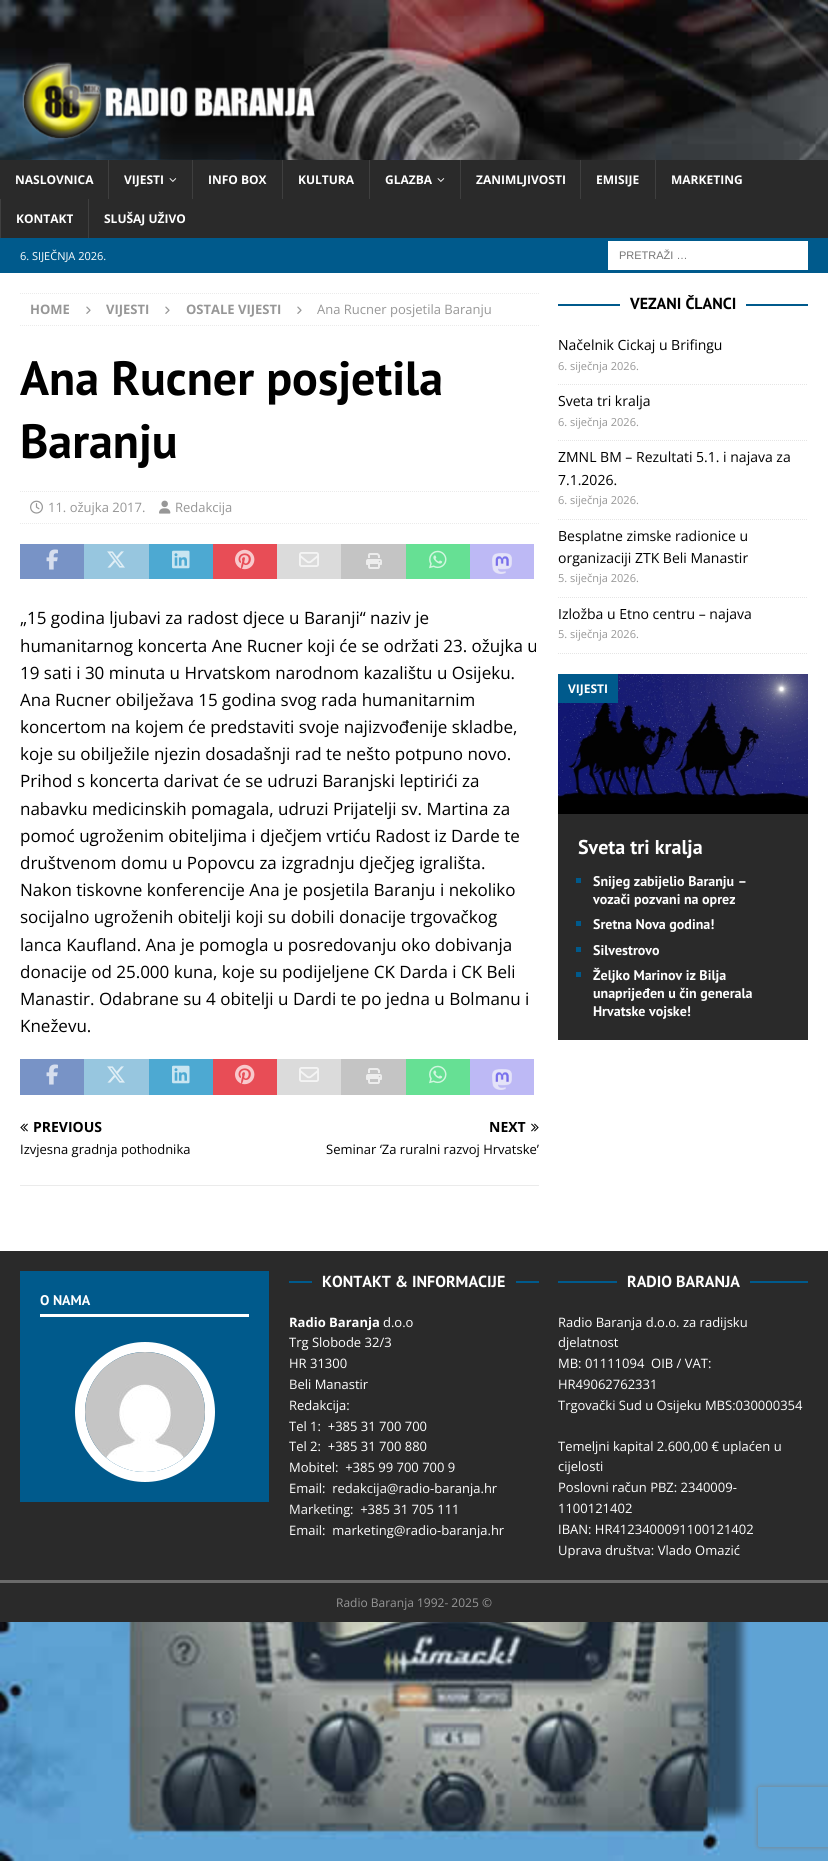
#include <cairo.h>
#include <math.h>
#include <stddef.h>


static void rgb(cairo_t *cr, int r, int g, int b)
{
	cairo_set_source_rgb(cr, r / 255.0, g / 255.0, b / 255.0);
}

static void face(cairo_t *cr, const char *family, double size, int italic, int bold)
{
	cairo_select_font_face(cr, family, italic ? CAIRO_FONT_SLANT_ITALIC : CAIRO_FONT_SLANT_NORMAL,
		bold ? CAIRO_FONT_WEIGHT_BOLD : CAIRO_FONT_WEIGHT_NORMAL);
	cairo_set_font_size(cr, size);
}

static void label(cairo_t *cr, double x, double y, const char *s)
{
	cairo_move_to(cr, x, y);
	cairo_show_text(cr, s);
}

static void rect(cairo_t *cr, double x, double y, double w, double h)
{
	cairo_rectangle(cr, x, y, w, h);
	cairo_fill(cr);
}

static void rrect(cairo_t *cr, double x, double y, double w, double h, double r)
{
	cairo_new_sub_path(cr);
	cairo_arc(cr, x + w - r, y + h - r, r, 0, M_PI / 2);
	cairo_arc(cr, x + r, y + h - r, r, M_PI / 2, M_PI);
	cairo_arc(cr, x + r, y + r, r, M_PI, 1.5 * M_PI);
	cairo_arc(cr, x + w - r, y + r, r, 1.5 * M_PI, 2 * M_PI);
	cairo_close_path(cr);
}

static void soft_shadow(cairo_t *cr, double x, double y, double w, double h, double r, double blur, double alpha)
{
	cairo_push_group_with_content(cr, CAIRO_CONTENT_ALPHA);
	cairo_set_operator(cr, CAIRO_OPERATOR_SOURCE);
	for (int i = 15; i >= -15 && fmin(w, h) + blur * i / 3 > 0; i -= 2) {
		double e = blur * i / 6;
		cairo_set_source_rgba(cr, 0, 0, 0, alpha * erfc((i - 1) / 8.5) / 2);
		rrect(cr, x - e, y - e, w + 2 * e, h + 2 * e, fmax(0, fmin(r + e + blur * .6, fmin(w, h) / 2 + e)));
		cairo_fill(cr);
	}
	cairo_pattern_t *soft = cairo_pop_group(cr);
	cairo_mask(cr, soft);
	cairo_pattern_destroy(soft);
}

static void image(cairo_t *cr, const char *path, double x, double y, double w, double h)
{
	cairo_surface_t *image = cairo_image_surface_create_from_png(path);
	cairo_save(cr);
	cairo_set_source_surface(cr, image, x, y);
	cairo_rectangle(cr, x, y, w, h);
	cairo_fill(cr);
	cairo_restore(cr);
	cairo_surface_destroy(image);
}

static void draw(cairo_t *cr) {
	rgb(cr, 255, 255, 255);
	cairo_paint(cr);
	image(cr, "image0.png", 0, 0, 828, 1861);
	image(cr, "image1.png", 22, 62, 296, 77);
	rgb(cr, 42, 42, 42);
	rect(cr, 0, 160, 828, 78);
	face(cr, "Open Sans", 12, 0, 1);
	rgb(cr, 255, 255, 255);
	label(cr, 15, 184, "NASLOVNICA");
	rgb(cr, 63, 63, 63);
	rect(cr, 108, 160, 1, 39);
	rgb(cr, 255, 255, 255);
	label(cr, 124, 184, "VIJESTI");
	image(cr, "image2.png", 169, 178, 8, 4);
	rgb(cr, 63, 63, 63);
	rect(cr, 192, 160, 1, 39);
	rgb(cr, 255, 255, 255);
	label(cr, 208, 184, "INFO BOX");
	rgb(cr, 63, 63, 63);
	rect(cr, 282, 160, 1, 39);
	rgb(cr, 255, 255, 255);
	label(cr, 298, 184, "KULTURA");
	rgb(cr, 63, 63, 63);
	rect(cr, 369, 160, 1, 39);
	rgb(cr, 255, 255, 255);
	label(cr, 385, 184, "GLAZBA");
	image(cr, "image2.png", 437, 178, 8, 4);
	rgb(cr, 63, 63, 63);
	rect(cr, 460, 160, 1, 39);
	rgb(cr, 255, 255, 255);
	label(cr, 476, 184, "ZANIMLJIVOSTI");
	rgb(cr, 63, 63, 63);
	rect(cr, 580, 160, 1, 39);
	rgb(cr, 255, 255, 255);
	label(cr, 596, 184, "EMISIJE");
	rgb(cr, 63, 63, 63);
	rect(cr, 655, 160, 1, 39);
	rgb(cr, 255, 255, 255);
	label(cr, 671, 184, "MARKETING");
	rgb(cr, 63, 63, 63);
	rect(cr, 0, 199, 1, 39);
	rgb(cr, 255, 255, 255);
	label(cr, 16, 223, "KONTAKT");
	rgb(cr, 63, 63, 63);
	rect(cr, 88, 199, 1, 39);
	rgb(cr, 255, 255, 255);
	label(cr, 104, 223, "SLUŠAJ UŽIVO");
	rgb(cr, 0, 90, 140);
	rect(cr, 0, 238, 828, 35);
	face(cr, "Open Sans", 11, 0, 0);
	rgb(cr, 255, 255, 255);
	label(cr, 20, 260, "6. SIJEČNJA 2026.");
	rect(cr, 608, 241, 200, 29);
	face(cr, "Liberation Sans", 11, 0, 0);
	rgb(cr, 117, 117, 117);
	label(cr, 619, 259, "PRETRAŽI …");
	rgb(cr, 255, 255, 255);
	rect(cr, 0, 273, 828, 978);
	cairo_new_path(cr);
	cairo_move_to(cr, 20, 293.5);
	cairo_line_to(cr, 539, 293.5);
	rgb(cr, 235, 235, 235);
	cairo_set_line_width(cr, 1);
	cairo_set_dash(cr, (double[]){1, 1}, 2, 0);
	cairo_stroke(cr);
	cairo_new_path(cr);
	cairo_move_to(cr, 20, 325.5);
	cairo_line_to(cr, 539, 325.5);
	cairo_stroke(cr);
	face(cr, "Open Sans", 13, 0, 1);
	rgb(cr, 151, 151, 151);
	label(cr, 30, 314, "HOME");
	image(cr, "image3.png", 86, 306, 5, 8);
	label(cr, 106, 314, "VIJESTI");
	image(cr, "image3.png", 165, 306, 5, 8);
	label(cr, 186, 314, "OSTALE VIJESTI");
	image(cr, "image3.png", 297, 306, 5, 8);
	face(cr, "Open Sans", 13, 0, 0);
	label(cr, 317, 314, "Ana Rucner posjetila Baranju");
	face(cr, "PT Sans", 48, 0, 1);
	rgb(cr, 0, 0, 0);
	label(cr, 20, 395, "Ana Rucner posjetila");
	label(cr, 20, 458, "Baranju");
	cairo_new_path(cr);
	cairo_move_to(cr, 20, 491.5);
	cairo_line_to(cr, 539, 491.5);
	rgb(cr, 235, 235, 235);
	cairo_stroke(cr);
	cairo_new_path(cr);
	cairo_move_to(cr, 20, 523.5);
	cairo_line_to(cr, 539, 523.5);
	cairo_stroke(cr);
	image(cr, "image4.png", 30, 500, 13, 14);
	face(cr, "Open Sans", 13, 0, 0);
	rgb(cr, 151, 151, 151);
	label(cr, 48, 512, "11. ožujka 2017.");
	image(cr, "image5.png", 159, 500, 12, 14);
	label(cr, 175, 512, "Redakcija");
	rgb(cr, 120, 147, 198);
	rect(cr, 20, 544, 64, 35);
	image(cr, "image6.png", 46, 549, 12, 21);
	rgb(cr, 151, 198, 223);
	rect(cr, 84, 544, 65, 35);
	image(cr, "image7.png", 107, 551, 18, 17);
	rgb(cr, 77, 169, 210);
	rect(cr, 149, 544, 64, 35);
	image(cr, "image8.png", 172, 550, 18, 19);
	rgb(cr, 232, 77, 86);
	rect(cr, 213, 544, 64, 35);
	image(cr, "image9.png", 235, 549, 20, 21);
	rgb(cr, 219, 219, 219);
	rect(cr, 277, 544, 64, 35);
	image(cr, "image10.png", 299, 552, 20, 15);
	rgb(cr, 196, 196, 196);
	rect(cr, 341, 544, 65, 35);
	image(cr, "image11.png", 366, 553, 16, 16);
	rgb(cr, 102, 224, 148);
	rect(cr, 406, 544, 64, 35);
	image(cr, "image12.png", 429, 550, 18, 19);
	rgb(cr, 189, 185, 245);
	rect(cr, 470, 544, 64, 35);
	image(cr, "image13.png", 492, 553, 20, 21);
	face(cr, "Open Sans", 17, 0, 0);
	rgb(cr, 0, 0, 0);
	label(cr, 20, 624, "„15 godina ljubavi za radost djece u Baranji“ naziv je");
	label(cr, 20, 652, "humanitarnog koncerta Ane Rucner koji će se održati 23. ožujka u");
	label(cr, 20, 679, "19 sati i 30 minuta u Hrvatskom narodnom kazalištu u Osijeku.");
	label(cr, 20, 706, "Ana Rucner obilježava 15 godina svog rada humanitarnim");
	label(cr, 20, 733, "koncertom na kojem će predstaviti svoje najizvođenije skladbe,");
	label(cr, 20, 760, "koje su obilježile njezin dosadašnji rad te nešto potpuno novo.");
	label(cr, 20, 787, "Prihod s koncerta darivat će se udruzi Baranjski leptirići za");
	label(cr, 20, 815, "nabavku medicinskih pomagala, udruzi Prijatelji sv. Martina za");
	label(cr, 20, 842, "pomoć ugroženim obiteljima i dječjem vrtiću Radost iz Darde te");
	label(cr, 20, 869, "društvenom domu u Popovcu za izgradnju dječjeg igrališta.");
	label(cr, 20, 896, "Nakon tiskovne konferencije Ana je posjetila Baranju i nekoliko");
	label(cr, 20, 923, "socijalno ugroženih obitelji koji su dobili donacije trgovačkog");
	label(cr, 20, 951, "lanca Kaufland. Ana je pomogla u posredovanju oko dobivanja");
	label(cr, 20, 978, "donacije od 25.000 kuna, koje su podijeljene CK Darda i CK Beli");
	label(cr, 20, 1005, "Manastir. Odabrane su 4 obitelji u Dardi te po jedna u Bolmanu i");
	label(cr, 20, 1032, "Kneževu.");
	rgb(cr, 120, 147, 198);
	rect(cr, 20, 1059, 64, 36);
	image(cr, "image6.png", 46, 1064, 12, 21);
	rgb(cr, 151, 198, 223);
	rect(cr, 84, 1059, 65, 36);
	image(cr, "image7.png", 107, 1066, 18, 17);
	rgb(cr, 77, 169, 210);
	rect(cr, 149, 1059, 64, 36);
	image(cr, "image8.png", 172, 1065, 18, 19);
	rgb(cr, 232, 77, 86);
	rect(cr, 213, 1059, 64, 36);
	image(cr, "image9.png", 235, 1064, 20, 21);
	rgb(cr, 219, 219, 219);
	rect(cr, 277, 1059, 64, 36);
	image(cr, "image10.png", 299, 1067, 20, 15);
	rgb(cr, 196, 196, 196);
	rect(cr, 341, 1059, 65, 36);
	image(cr, "image11.png", 366, 1068, 16, 16);
	rgb(cr, 102, 224, 148);
	rect(cr, 406, 1059, 64, 36);
	image(cr, "image12.png", 429, 1065, 18, 19);
	rgb(cr, 189, 185, 245);
	rect(cr, 470, 1059, 64, 36);
	image(cr, "image13.png", 492, 1069, 20, 21);
	rgb(cr, 235, 235, 235);
	rect(cr, 20, 1185, 519, 1);
	image(cr, "image14.png", 20, 1123, 8, 9);
	face(cr, "Open Sans", 14, 0, 1);
	rgb(cr, 0, 0, 0);
	label(cr, 33, 1132, "PREVIOUS");
	face(cr, "Open Sans", 13, 0, 0);
	label(cr, 20, 1154, "Izvjesna gradnja pothodnika");
	face(cr, "Open Sans", 14, 0, 1);
	label(cr, 489, 1132, "NEXT");
	image(cr, "image15.png", 531, 1123, 8, 9);
	face(cr, "Open Sans", 13, 0, 0);
	label(cr, 326, 1154, "Seminar ‘Za ruralni razvoj Hrvatske’");
	rgb(cr, 0, 90, 140);
	rect(cr, 558, 304, 250, 2);
	rgb(cr, 255, 255, 255);
	rect(cr, 620, 304, 126, 2);
	face(cr, "PT Sans", 16, 0, 1);
	rgb(cr, 0, 0, 0);
	label(cr, 630, 309, "VEZANI ČLANCI");
	cairo_new_path(cr);
	cairo_move_to(cr, 558, 384.5);
	cairo_line_to(cr, 808, 384.5);
	rgb(cr, 229, 229, 229);
	cairo_stroke(cr);
	face(cr, "Open Sans", 14, 0, 0);
	rgb(cr, 0, 0, 0);
	label(cr, 558, 350, "Načelnik Cickaj u Brifingu");
	face(cr, "Open Sans", 11, 0, 0);
	rgb(cr, 151, 151, 151);
	label(cr, 558, 370, "6. siječnja 2026.");
	cairo_new_path(cr);
	cairo_move_to(cr, 558, 440.5);
	cairo_line_to(cr, 808, 440.5);
	rgb(cr, 229, 229, 229);
	cairo_stroke(cr);
	face(cr, "Open Sans", 14, 0, 0);
	rgb(cr, 0, 0, 0);
	label(cr, 558, 406, "Sveta tri kralja");
	face(cr, "Open Sans", 11, 0, 0);
	rgb(cr, 151, 151, 151);
	label(cr, 558, 426, "6. siječnja 2026.");
	cairo_new_path(cr);
	cairo_move_to(cr, 558, 519.5);
	cairo_line_to(cr, 808, 519.5);
	rgb(cr, 229, 229, 229);
	cairo_stroke(cr);
	face(cr, "Open Sans", 14, 0, 0);
	rgb(cr, 0, 0, 0);
	label(cr, 558, 462, "ZMNL BM – Rezultati 5.1. i najava za");
	label(cr, 558, 485, "7.1.2026.");
	face(cr, "Open Sans", 11, 0, 0);
	rgb(cr, 151, 151, 151);
	label(cr, 558, 504, "6. siječnja 2026.");
	cairo_new_path(cr);
	cairo_move_to(cr, 558, 597.5);
	cairo_line_to(cr, 808, 597.5);
	rgb(cr, 229, 229, 229);
	cairo_stroke(cr);
	face(cr, "Open Sans", 14, 0, 0);
	rgb(cr, 0, 0, 0);
	label(cr, 558, 541, "Besplatne zimske radionice u");
	label(cr, 558, 563, "organizaciji ZTK Beli Manastir");
	face(cr, "Open Sans", 11, 0, 0);
	rgb(cr, 151, 151, 151);
	label(cr, 558, 582, "5. siječnja 2026.");
	cairo_new_path(cr);
	cairo_move_to(cr, 558, 653.5);
	cairo_line_to(cr, 808, 653.5);
	rgb(cr, 229, 229, 229);
	cairo_stroke(cr);
	face(cr, "Open Sans", 14, 0, 0);
	rgb(cr, 0, 0, 0);
	label(cr, 558, 619, "Izložba u Etno centru – najava");
	face(cr, "Open Sans", 11, 0, 0);
	rgb(cr, 151, 151, 151);
	label(cr, 558, 638, "5. siječnja 2026.");
	image(cr, "image16.png", 558, 674, 250, 140);
	rgb(cr, 0, 90, 140);
	rect(cr, 558, 674, 60, 29);
	face(cr, "Open Sans", 12, 0, 1);
	rgb(cr, 255, 255, 255);
	label(cr, 568, 693, "VIJESTI");
	rgb(cr, 42, 42, 42);
	rect(cr, 558, 814, 250, 226);
	face(cr, "PT Sans", 20, 0, 1);
	rgb(cr, 255, 255, 255);
	label(cr, 578, 854, "Sveta tri kralja");
	rgb(cr, 0, 90, 140);
	rect(cr, 576, 878, 5, 5);
	face(cr, "PT Sans", 14, 0, 1);
	rgb(cr, 255, 255, 255);
	label(cr, 593, 886, "Snijeg zabijelio Baranju –");
	label(cr, 593, 904, "vozači pozvani na oprez");
	rgb(cr, 0, 90, 140);
	rect(cr, 576, 921, 5, 5);
	rgb(cr, 255, 255, 255);
	label(cr, 593, 929, "Sretna Nova godina!");
	rgb(cr, 0, 90, 140);
	rect(cr, 576, 947, 5, 5);
	rgb(cr, 255, 255, 255);
	label(cr, 593, 955, "Silvestrovo");
	rgb(cr, 0, 90, 140);
	rect(cr, 576, 972, 5, 5);
	rgb(cr, 255, 255, 255);
	label(cr, 593, 980, "Željko Marinov iz Bilja");
	label(cr, 593, 998, "unaprijeđen u čin generala");
	label(cr, 593, 1016, "Hrvatske vojske!");
	rgb(cr, 42, 42, 42);
	rect(cr, 0, 1251, 828, 329);
	rgb(cr, 0, 90, 140);
	rect(cr, 20, 1271, 249, 231);
	rgb(cr, 255, 255, 255);
	rect(cr, 40, 1314, 209, 3);
	label(cr, 40, 1305, "O NAMA");
	cairo_new_path(cr);
	cairo_arc(cr, 145, 1412, 65, 0, 2 * M_PI);
	cairo_set_line_width(cr, 10);
	cairo_set_dash(cr, NULL, 0, 0);
	cairo_stroke(cr);
	image(cr, "image17.png", 85, 1352, 120, 120);
	rgb(cr, 0, 90, 140);
	rect(cr, 289, 1281, 250, 2);
	rgb(cr, 42, 42, 42);
	rect(cr, 312, 1281, 204, 2);
	face(cr, "PT Sans", 16, 0, 1);
	rgb(cr, 255, 255, 255);
	label(cr, 322, 1287, "KONTAKT & INFORMACIJE");
	face(cr, "Open Sans", 13, 0, 1);
	label(cr, 289, 1327, "Radio Baranja");
	face(cr, "Open Sans", 13, 0, 0);
	label(cr, 383, 1327, "d.o.o");
	label(cr, 289, 1347, "Trg Slobode 32/3");
	label(cr, 289, 1368, "HR 31300");
	label(cr, 289, 1389, "Beli Manastir");
	label(cr, 289, 1410, "Redakcija:");
	label(cr, 289, 1431, "Tel 1:  +385 31 700 700");
	label(cr, 289, 1451, "Tel 2:  +385 31 700 880");
	label(cr, 289, 1472, "Mobitel:  +385 99 700 700 9");
	label(cr, 289, 1493, "Email:  redakcija@radio-baranja.hr");
	rgb(cr, 247, 247, 247);
	label(cr, 289, 1514, "Marketing");
	rgb(cr, 255, 255, 255);
	label(cr, 350, 1514, ":  +385 31 705 111");
	label(cr, 289, 1535, "Email:  marketing@radio-baranja.hr");
	rgb(cr, 0, 90, 140);
	rect(cr, 558, 1281, 250, 2);
	rgb(cr, 42, 42, 42);
	rect(cr, 617, 1281, 133, 2);
	face(cr, "PT Sans", 16, 0, 1);
	rgb(cr, 255, 255, 255);
	label(cr, 627, 1287, "RADIO BARANJA");
	face(cr, "Open Sans", 13, 0, 0);
	label(cr, 558, 1327, "Radio Baranja d.o.o. za radijsku");
	label(cr, 558, 1347, "djelatnost");
	label(cr, 558, 1368, "MB: 01111094  OIB / VAT:");
	label(cr, 558, 1389, "HR49062762331");
	label(cr, 558, 1410, "Trgovački Sud u Osijeku MBS:030000354");
	label(cr, 558, 1451, "Temeljni kapital 2.600,00 € uplaćen u");
	label(cr, 558, 1471, "cijelosti");
	label(cr, 558, 1492, "Poslovni račun PBZ: 2340009-");
	label(cr, 558, 1513, "1100121402");
	label(cr, 558, 1534, "IBAN: HR4123400091100121402");
	label(cr, 558, 1555, "Uprava društva: Vlado Omazić");
	rgb(cr, 42, 42, 42);
	rect(cr, 0, 1583, 828, 39);
	rgb(cr, 106, 106, 106);
	rect(cr, 0, 1580, 828, 3);
	face(cr, "Open Sans", 12, 0, 0);
	rgb(cr, 151, 151, 151);
	label(cr, 336, 1607, "Radio Baranja 1992- 2025 ©");
	cairo_save(cr);
	cairo_set_fill_rule(cr, CAIRO_FILL_RULE_EVEN_ODD);
	cairo_new_path(cr);
	cairo_move_to(cr, 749, 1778);
	cairo_line_to(cr, 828, 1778);
	cairo_line_to(cr, 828, 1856);
	cairo_line_to(cr, 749, 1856);
	cairo_close_path(cr);
	cairo_move_to(cr, 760, 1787);
	cairo_line_to(cr, 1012, 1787);
	cairo_curve_to(cr, 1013, 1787, 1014, 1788, 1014, 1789);
	cairo_line_to(cr, 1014, 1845);
	cairo_curve_to(cr, 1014, 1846, 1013, 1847, 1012, 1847);
	cairo_line_to(cr, 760, 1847);
	cairo_curve_to(cr, 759, 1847, 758, 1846, 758, 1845);
	cairo_line_to(cr, 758, 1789);
	cairo_curve_to(cr, 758, 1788, 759, 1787, 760, 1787);
	cairo_close_path(cr);
	cairo_clip(cr);
	rgb(cr, 128, 128, 128);
	soft_shadow(cr, 758, 1787, 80, 60, 2, 2.5, 1);
	cairo_restore(cr);
}

int main(void) {
	cairo_surface_t *surface = cairo_image_surface_create(CAIRO_FORMAT_RGB24, 828, 1861);
	cairo_t *cr = cairo_create(surface);
	cairo_font_options_t *options = cairo_font_options_create();
	cairo_font_options_set_hint_metrics(options, CAIRO_HINT_METRICS_OFF);
	cairo_font_options_set_hint_style(options, CAIRO_HINT_STYLE_NONE);
	cairo_set_font_options(cr, options);
	cairo_set_miter_limit(cr, 4);
	draw(cr);
	cairo_surface_write_to_png(surface, "render.png");
	cairo_font_options_destroy(options);
	cairo_destroy(cr);
	cairo_surface_destroy(surface);
	return 0;
}
